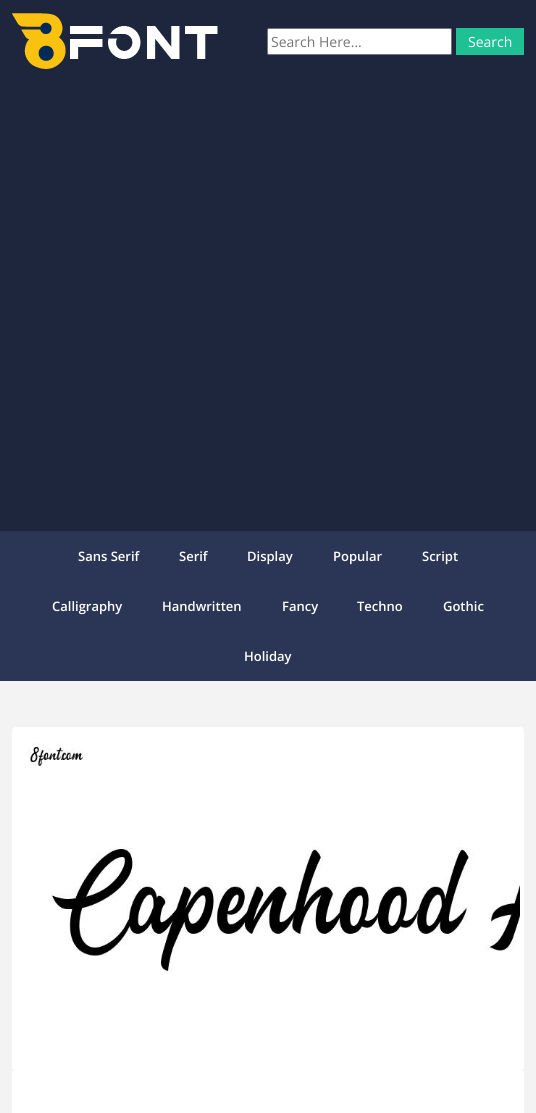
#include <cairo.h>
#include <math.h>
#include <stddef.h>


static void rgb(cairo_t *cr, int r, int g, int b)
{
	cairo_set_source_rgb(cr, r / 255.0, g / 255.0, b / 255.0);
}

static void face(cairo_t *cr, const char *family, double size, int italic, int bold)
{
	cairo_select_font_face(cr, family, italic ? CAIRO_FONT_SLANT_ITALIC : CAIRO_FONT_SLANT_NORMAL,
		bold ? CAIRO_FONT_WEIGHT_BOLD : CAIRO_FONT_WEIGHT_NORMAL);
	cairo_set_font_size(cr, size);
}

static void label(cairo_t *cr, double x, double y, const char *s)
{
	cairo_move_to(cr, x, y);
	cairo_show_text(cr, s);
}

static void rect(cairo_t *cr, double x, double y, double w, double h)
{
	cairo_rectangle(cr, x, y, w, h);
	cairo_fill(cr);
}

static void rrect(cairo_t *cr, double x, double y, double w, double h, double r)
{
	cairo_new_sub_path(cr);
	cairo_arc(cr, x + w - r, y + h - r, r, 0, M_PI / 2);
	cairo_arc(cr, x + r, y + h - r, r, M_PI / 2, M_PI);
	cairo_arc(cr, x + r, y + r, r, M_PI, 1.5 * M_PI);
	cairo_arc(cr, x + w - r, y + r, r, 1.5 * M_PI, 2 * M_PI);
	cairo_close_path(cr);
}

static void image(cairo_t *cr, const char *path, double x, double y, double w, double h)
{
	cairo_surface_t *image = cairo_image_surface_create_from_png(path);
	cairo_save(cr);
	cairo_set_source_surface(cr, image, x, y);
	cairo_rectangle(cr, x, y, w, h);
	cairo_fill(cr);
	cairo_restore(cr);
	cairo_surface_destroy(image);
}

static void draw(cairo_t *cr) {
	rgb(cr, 243, 243, 243);
	cairo_paint(cr);
	rgb(cr, 30, 38, 62);
	rect(cr, 0, 0, 536, 531);
	image(cr, "image0.png", 12, 13, 206, 56);
	rgb(cr, 255, 255, 255);
	rrect(cr, 267.5, 28.5, 184, 26, 1.5);
	cairo_fill_preserve(cr);
	rgb(cr, 118, 118, 118);
	cairo_set_line_width(cr, 1);
	cairo_stroke(cr);
	face(cr, "Open Sans", 14, 0, 0);
	rgb(cr, 117, 117, 117);
	label(cr, 271, 47, "Search Here...");
	rgb(cr, 31, 192, 147);
	rect(cr, 456, 28, 68, 27);
	rgb(cr, 255, 255, 255);
	label(cr, 468, 47, "Search");
	rgb(cr, 43, 54, 86);
	rect(cr, 0, 531, 536, 150);
	face(cr, "Open Sans SemiBold", 13, 0, 0);
	rgb(cr, 255, 255, 255);
	label(cr, 78, 561, "Sans Serif");
	label(cr, 179, 561, "Serif");
	label(cr, 247, 561, "Display");
	label(cr, 333, 561, "Popular");
	label(cr, 422, 561, "Script");
	label(cr, 52, 611, "Calligraphy");
	label(cr, 162, 611, "Handwritten");
	label(cr, 282, 611, "Fancy");
	label(cr, 357, 611, "Techno");
	label(cr, 443, 611, "Gothic");
	label(cr, 244, 661, "Holiday");
	rrect(cr, 12, 727, 512, 344, 4);
	cairo_fill(cr);
	image(cr, "image1.png", 28, 743, 492, 231);
	rect(cr, 12, 1071, 512, 42);
}

int main(void) {
	cairo_surface_t *surface = cairo_image_surface_create(CAIRO_FORMAT_RGB24, 536, 1113);
	cairo_t *cr = cairo_create(surface);
	cairo_font_options_t *options = cairo_font_options_create();
	cairo_font_options_set_hint_metrics(options, CAIRO_HINT_METRICS_OFF);
	cairo_font_options_set_hint_style(options, CAIRO_HINT_STYLE_NONE);
	cairo_set_font_options(cr, options);
	cairo_set_miter_limit(cr, 4);
	draw(cr);
	cairo_surface_write_to_png(surface, "render.png");
	cairo_font_options_destroy(options);
	cairo_destroy(cr);
	cairo_surface_destroy(surface);
	return 0;
}
